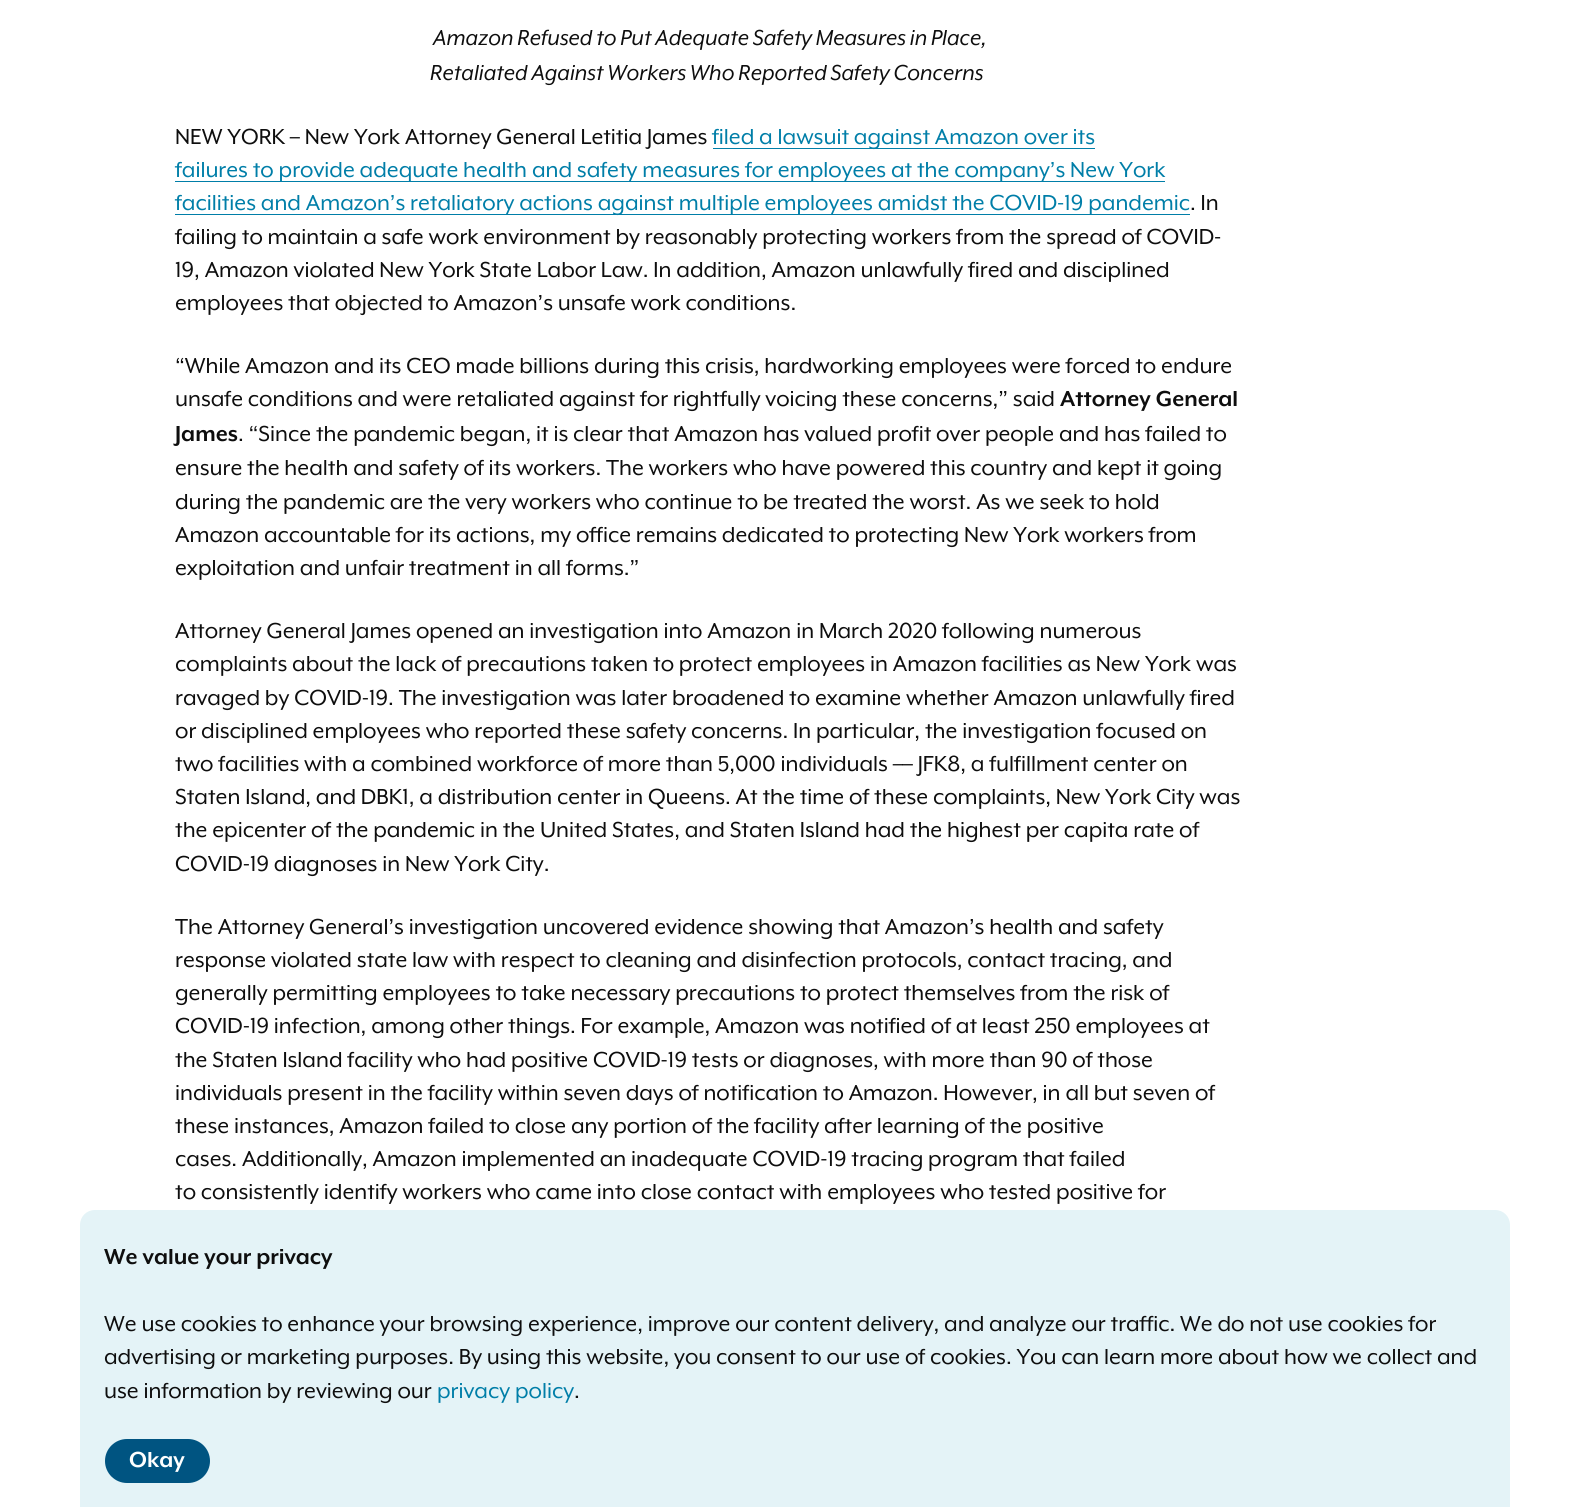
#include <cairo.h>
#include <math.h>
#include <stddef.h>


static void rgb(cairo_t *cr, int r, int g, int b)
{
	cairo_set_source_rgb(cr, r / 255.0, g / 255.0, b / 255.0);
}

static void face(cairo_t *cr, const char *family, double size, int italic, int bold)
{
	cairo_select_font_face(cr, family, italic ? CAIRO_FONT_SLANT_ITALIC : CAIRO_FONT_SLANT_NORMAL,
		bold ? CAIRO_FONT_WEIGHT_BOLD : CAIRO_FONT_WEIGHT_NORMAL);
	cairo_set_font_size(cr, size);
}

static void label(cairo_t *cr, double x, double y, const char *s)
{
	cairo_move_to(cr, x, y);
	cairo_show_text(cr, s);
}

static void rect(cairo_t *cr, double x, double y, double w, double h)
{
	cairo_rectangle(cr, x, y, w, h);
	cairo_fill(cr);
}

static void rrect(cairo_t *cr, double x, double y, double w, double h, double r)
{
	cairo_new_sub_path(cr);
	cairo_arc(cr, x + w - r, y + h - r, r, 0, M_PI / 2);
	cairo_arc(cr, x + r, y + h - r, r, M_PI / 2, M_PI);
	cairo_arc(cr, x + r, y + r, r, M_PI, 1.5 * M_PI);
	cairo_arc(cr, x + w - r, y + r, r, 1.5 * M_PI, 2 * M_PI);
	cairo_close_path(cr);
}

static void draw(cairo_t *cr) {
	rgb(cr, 255, 255, 255);
	cairo_paint(cr);
	face(cr, "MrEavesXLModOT", 25, 1, 0);
	rgb(cr, 14, 14, 14);
	label(cr, 433, 45, "Amazon Refused to Put Adequate Safety Measures in Place,");
	label(cr, 430, 80, "Retaliated Against Workers Who Reported Safety Concerns");
	face(cr, "MrEavesXLModOT", 25, 0, 0);
	label(cr, 175, 144, "NEW YORK – New York Attorney General Letitia James");
	rgb(cr, 0, 126, 168);
	rect(cr, 713, 148, 382, 1);
	label(cr, 712, 144, "filed a lawsuit against Amazon over its");
	rect(cr, 175, 181, 990, 1);
	label(cr, 175, 177, "failures to provide adequate health and safety measures for employees at the company’s New York");
	rect(cr, 175, 214, 1015, 1);
	label(cr, 175, 210, "facilities and Amazon’s retaliatory actions against multiple employees amidst the COVID-19 pandemic");
	rgb(cr, 14, 14, 14);
	label(cr, 1190, 210, ". In");
	label(cr, 175, 244, "failing to maintain a safe work environment by reasonably protecting workers from the spread of COVID-");
	label(cr, 175, 277, "19, Amazon violated New York State Labor Law. In addition, Amazon unlawfully fired and disciplined");
	label(cr, 175, 310, "employees that objected to Amazon’s unsafe work conditions.");
	label(cr, 175, 373, "“While Amazon and its CEO made billions during this crisis, hardworking employees were forced to endure");
	label(cr, 175, 406, "unsafe conditions and were retaliated against for rightfully voicing these concerns,” said");
	face(cr, "MrEavesXLModOT", 25, 0, 1);
	label(cr, 1060, 406, "Attorney General");
	label(cr, 175, 441, "James");
	face(cr, "MrEavesXLModOT", 25, 0, 0);
	label(cr, 238, 441, ". “Since the pandemic began, it is clear that Amazon has valued profit over people and has failed to");
	label(cr, 175, 475, "ensure the health and safety of its workers. The workers who have powered this country and kept it going");
	label(cr, 175, 509, "during the pandemic are the very workers who continue to be treated the worst. As we seek to hold");
	label(cr, 175, 542, "Amazon accountable for its actions, my office remains dedicated to protecting New York workers from");
	label(cr, 175, 575, "exploitation and unfair treatment in all forms.”");
	label(cr, 175, 638, "Attorney General James opened an investigation into Amazon in March 2020 following numerous");
	label(cr, 175, 671, "complaints about the lack of precautions taken to protect employees in Amazon facilities as New York was");
	label(cr, 175, 705, "ravaged by COVID-19. The investigation was later broadened to examine whether Amazon unlawfully fired");
	label(cr, 175, 738, "or disciplined employees who reported these safety concerns. In particular, the investigation focused on");
	label(cr, 175, 771, "two facilities with a combined workforce of more than 5,000 individuals –– JFK8, a fulfillment center on");
	label(cr, 175, 804, "Staten Island, and DBK1, a distribution center in Queens. At the time of these complaints, New York City was");
	label(cr, 175, 837, "the epicenter of the pandemic in the United States, and Staten Island had the highest per capita rate of");
	label(cr, 175, 871, "COVID-19 diagnoses in New York City.");
	label(cr, 175, 934, "The Attorney General’s investigation uncovered evidence showing that Amazon’s health and safety");
	label(cr, 175, 967, "response violated state law with respect to cleaning and disinfection protocols, contact tracing, and");
	label(cr, 175, 1000, "generally permitting employees to take necessary precautions to protect themselves from the risk of");
	label(cr, 175, 1033, "COVID-19 infection, among other things. For example, Amazon was notified of at least 250 employees at");
	label(cr, 175, 1067, "the Staten Island facility who had positive COVID-19 tests or diagnoses, with more than 90 of those");
	label(cr, 175, 1100, "individuals present in the facility within seven days of notification to Amazon. However, in all but seven of");
	label(cr, 175, 1133, "these instances, Amazon failed to close any portion of the facility after learning of the positive");
	label(cr, 175, 1166, "cases. Additionally, Amazon implemented an inadequate COVID-19 tracing program that failed");
	label(cr, 175, 1199, "to consistently identify workers who came into close contact with employees who tested positive for");
	rgb(cr, 228, 243, 247);
	cairo_new_path(cr);
	cairo_move_to(cr, 95, 1210);
	cairo_line_to(cr, 1495, 1210);
	cairo_curve_to(cr, 1503.5, 1210, 1510, 1216.5, 1510, 1225);
	cairo_line_to(cr, 1510, 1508);
	cairo_line_to(cr, 80, 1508);
	cairo_line_to(cr, 80, 1225);
	cairo_curve_to(cr, 80, 1216.5, 86.5, 1210, 95, 1210);
	cairo_close_path(cr);
	cairo_fill(cr);
	face(cr, "MrEavesXLModOT", 25, 0, 1);
	rgb(cr, 14, 14, 14);
	label(cr, 104, 1264, "We value your privacy");
	face(cr, "MrEavesXLModOT", 25, 0, 0);
	label(cr, 104, 1331, "We use cookies to enhance your browsing experience, improve our content delivery, and analyze our traffic. We do not use cookies for");
	label(cr, 104, 1364, "advertising or marketing purposes. By using this website, you consent to our use of cookies. You can learn more about how we collect and");
	label(cr, 104, 1398, "use information by reviewing our");
	rgb(cr, 0, 126, 168);
	label(cr, 437, 1398, "privacy policy");
	rgb(cr, 14, 14, 14);
	label(cr, 574, 1398, ".");
	rgb(cr, 0, 84, 129);
	rrect(cr, 105, 1439, 105, 44, 22);
	cairo_fill(cr);
	face(cr, "MrEavesXLModOT", 25, 0, 1);
	rgb(cr, 255, 255, 255);
	label(cr, 129, 1467, "Okay");
}

int main(void) {
	cairo_surface_t *surface = cairo_image_surface_create(CAIRO_FORMAT_RGB24, 1589, 1507);
	cairo_t *cr = cairo_create(surface);
	cairo_font_options_t *options = cairo_font_options_create();
	cairo_font_options_set_hint_metrics(options, CAIRO_HINT_METRICS_OFF);
	cairo_font_options_set_hint_style(options, CAIRO_HINT_STYLE_NONE);
	cairo_set_font_options(cr, options);
	cairo_set_miter_limit(cr, 4);
	draw(cr);
	cairo_surface_write_to_png(surface, "render.png");
	cairo_font_options_destroy(options);
	cairo_destroy(cr);
	cairo_surface_destroy(surface);
	return 0;
}
